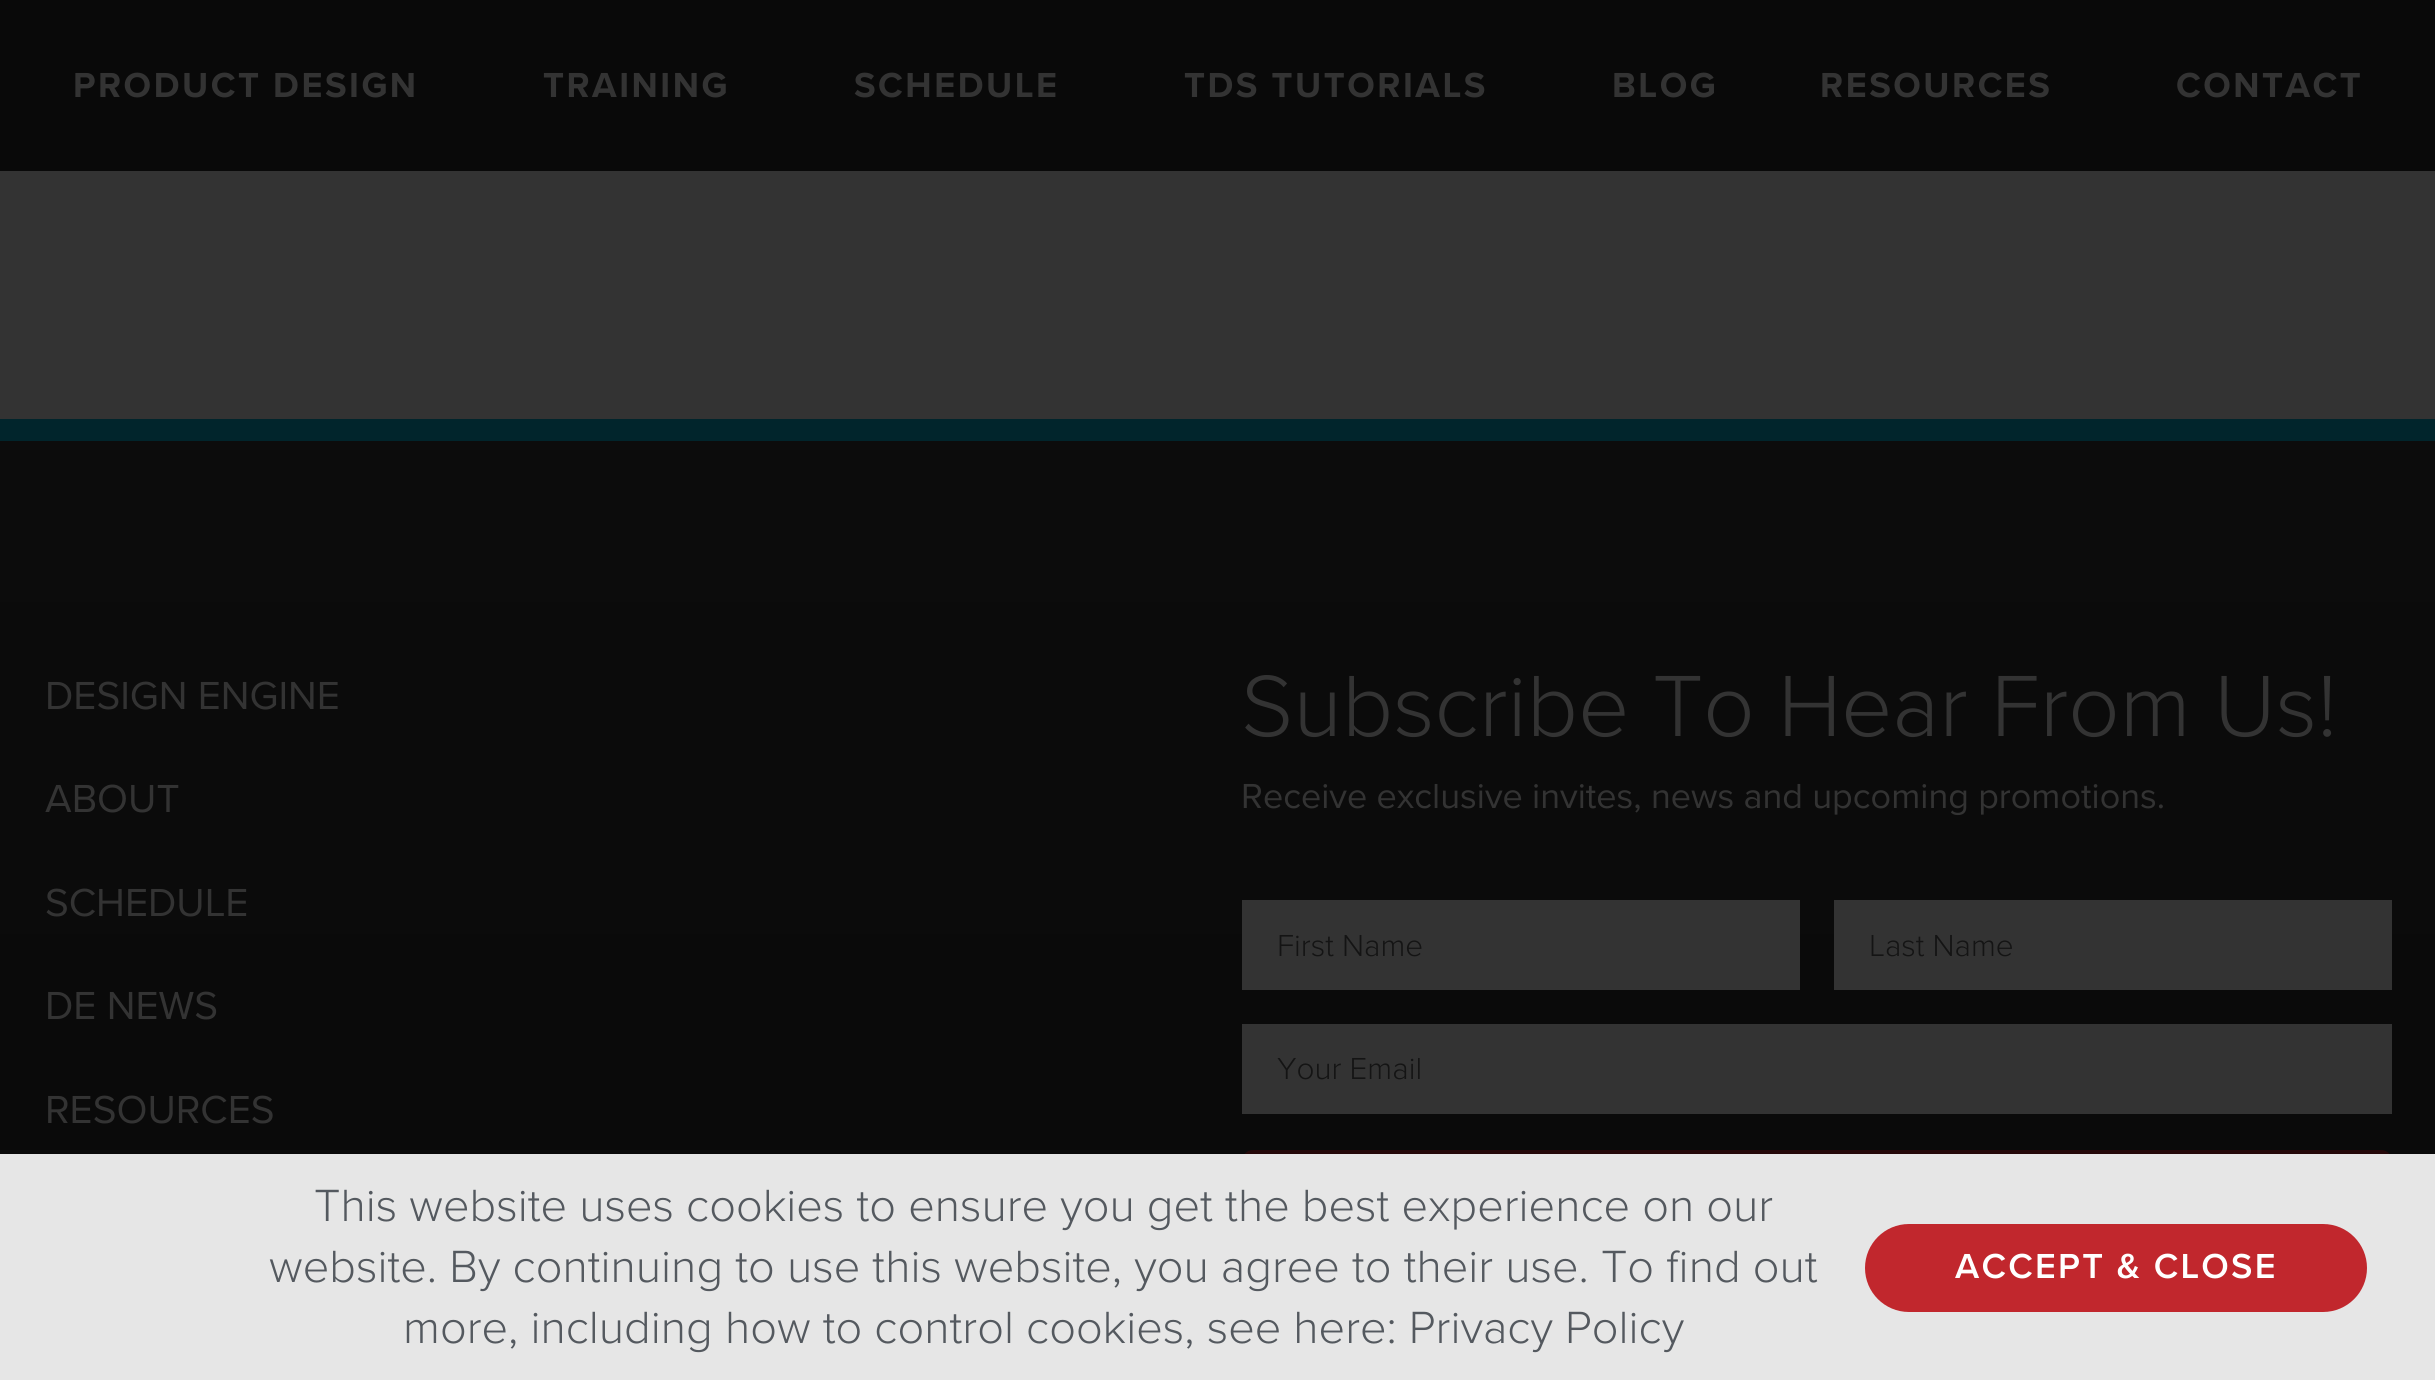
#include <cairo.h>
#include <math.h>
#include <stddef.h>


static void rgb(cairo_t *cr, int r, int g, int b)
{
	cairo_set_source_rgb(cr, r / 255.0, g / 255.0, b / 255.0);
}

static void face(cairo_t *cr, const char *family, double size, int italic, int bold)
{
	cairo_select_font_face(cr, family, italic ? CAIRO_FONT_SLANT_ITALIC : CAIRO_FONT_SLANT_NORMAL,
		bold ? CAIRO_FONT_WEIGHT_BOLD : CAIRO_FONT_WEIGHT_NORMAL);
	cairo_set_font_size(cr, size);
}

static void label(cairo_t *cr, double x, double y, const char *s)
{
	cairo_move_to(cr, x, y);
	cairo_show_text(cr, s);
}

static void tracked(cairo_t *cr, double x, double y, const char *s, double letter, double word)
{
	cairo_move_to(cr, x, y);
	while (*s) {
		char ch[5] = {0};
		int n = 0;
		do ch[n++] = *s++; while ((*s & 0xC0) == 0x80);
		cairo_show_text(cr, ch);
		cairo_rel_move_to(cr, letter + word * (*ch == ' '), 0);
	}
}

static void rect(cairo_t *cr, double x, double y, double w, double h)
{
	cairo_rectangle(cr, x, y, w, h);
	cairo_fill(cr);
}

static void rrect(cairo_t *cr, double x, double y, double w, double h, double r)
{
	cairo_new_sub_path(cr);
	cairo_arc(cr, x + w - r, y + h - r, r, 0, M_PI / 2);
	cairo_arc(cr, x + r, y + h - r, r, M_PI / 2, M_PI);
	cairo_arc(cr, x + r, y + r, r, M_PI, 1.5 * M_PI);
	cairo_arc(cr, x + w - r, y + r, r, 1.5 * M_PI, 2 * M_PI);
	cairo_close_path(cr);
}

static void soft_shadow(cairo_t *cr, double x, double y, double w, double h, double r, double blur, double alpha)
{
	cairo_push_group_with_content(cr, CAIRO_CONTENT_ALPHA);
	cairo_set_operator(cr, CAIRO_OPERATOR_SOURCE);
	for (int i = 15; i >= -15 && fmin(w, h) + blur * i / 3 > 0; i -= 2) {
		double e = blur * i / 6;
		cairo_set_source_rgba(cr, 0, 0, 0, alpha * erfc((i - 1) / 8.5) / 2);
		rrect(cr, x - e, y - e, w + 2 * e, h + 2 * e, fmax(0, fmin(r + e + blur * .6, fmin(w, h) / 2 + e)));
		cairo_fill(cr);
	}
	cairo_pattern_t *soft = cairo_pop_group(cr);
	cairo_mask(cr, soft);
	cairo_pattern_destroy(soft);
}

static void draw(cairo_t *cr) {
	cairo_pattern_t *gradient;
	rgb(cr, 51, 51, 51);
	cairo_paint(cr);
	rgb(cr, 9, 9, 9);
	rect(cr, 0, 0, 2435, 171);
	face(cr, "Proxima Nova", 36, 0, 1);
	rgb(cr, 51, 51, 51);
	tracked(cr, 73, 97, "PRODUCT DESIGN", 2.5, 0);
	tracked(cr, 543, 97, "TRAINING", 2.5, 0);
	tracked(cr, 854, 97, "SCHEDULE", 2.5, 0);
	tracked(cr, 1184, 97, "TDS TUTORIALS", 2.5, 0);
	tracked(cr, 1612, 97, "BLOG", 2.5, 0);
	tracked(cr, 1820, 97, "RESOURCES", 2.5, 0);
	tracked(cr, 2176, 97, "CONTACT", 2.5, 0);
	gradient = cairo_pattern_create_linear(1218, 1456, 1218, 441);
	cairo_pattern_add_color_stop_rgba(gradient, 0, 0.035, 0.035, 0.035, 1);
	cairo_pattern_add_color_stop_rgba(gradient, 1, 0.047, 0.047, 0.047, 1);
	cairo_set_source(cr, gradient);
	cairo_pattern_destroy(gradient);
	rect(cr, 0, 441, 2435, 713);
	rgb(cr, 1, 37, 44);
	rect(cr, 0, 419, 2435, 22);
	face(cr, "Proxima Nova", 40.5, 0, 0);
	rgb(cr, 51, 51, 51);
	label(cr, 45, 709, "DESIGN ENGINE");
	label(cr, 45, 812, "ABOUT");
	label(cr, 45, 916, "SCHEDULE");
	label(cr, 45, 1019, "DE NEWS");
	label(cr, 45, 1123, "RESOURCES");
	face(cr, "Proxima Nova Light", 90, 0, 0);
	label(cr, 1241, 736, "Subscribe To Hear From Us!");
	face(cr, "Proxima Nova", 36, 0, 0);
	label(cr, 1241, 808, "Receive exclusive invites, news and upcoming promotions.");
	rect(cr, 1242, 900, 558, 90);
	face(cr, "Proxima Nova Light", 31.5, 0, 0);
	rgb(cr, 20, 20, 20);
	label(cr, 1277, 956, "First Name");
	rgb(cr, 51, 51, 51);
	rect(cr, 1834, 900, 558, 90);
	rgb(cr, 20, 20, 20);
	label(cr, 1869, 956, "Last Name");
	rgb(cr, 51, 51, 51);
	rect(cr, 1242, 1024, 1150, 90);
	rgb(cr, 20, 20, 20);
	label(cr, 1277, 1079, "Your Email");
	rgb(cr, 39, 8, 9);
	rrect(cr, 1242, 1150, 1150, 99, 11);
	cairo_fill(cr);
	rgb(cr, 0, 0, 0);
	soft_shadow(cr, -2, 1166, 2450, 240, 0, 26, 0.2);
	rgb(cr, 230, 230, 230);
	rect(cr, 0, 1154, 2435, 226);
	face(cr, "Proxima Nova Light", 46.8, 0, 0);
	rgb(cr, 84, 89, 95);
	label(cr, 314, 1221, "This website uses cookies to ensure you get the best experience on our");
	label(cr, 269, 1282, "website. By continuing to use this website, you agree to their use. To find out");
	label(cr, 403, 1343, "more, including how to control cookies, see here: Privacy Policy");
	rgb(cr, 193, 39, 45);
	rrect(cr, 1865, 1224, 502, 88, 44);
	cairo_fill(cr);
	face(cr, "Proxima Nova SemiBold", 36, 0, 0);
	rgb(cr, 255, 255, 255);
	tracked(cr, 1955, 1278, "ACCEPT & CLOSE", 2.25, 0);
}

int main(void) {
	cairo_surface_t *surface = cairo_image_surface_create(CAIRO_FORMAT_RGB24, 2435, 1380);
	cairo_t *cr = cairo_create(surface);
	cairo_font_options_t *options = cairo_font_options_create();
	cairo_font_options_set_hint_metrics(options, CAIRO_HINT_METRICS_OFF);
	cairo_font_options_set_hint_style(options, CAIRO_HINT_STYLE_NONE);
	cairo_set_font_options(cr, options);
	cairo_set_miter_limit(cr, 4);
	draw(cr);
	cairo_surface_write_to_png(surface, "render.png");
	cairo_font_options_destroy(options);
	cairo_destroy(cr);
	cairo_surface_destroy(surface);
	return 0;
}
